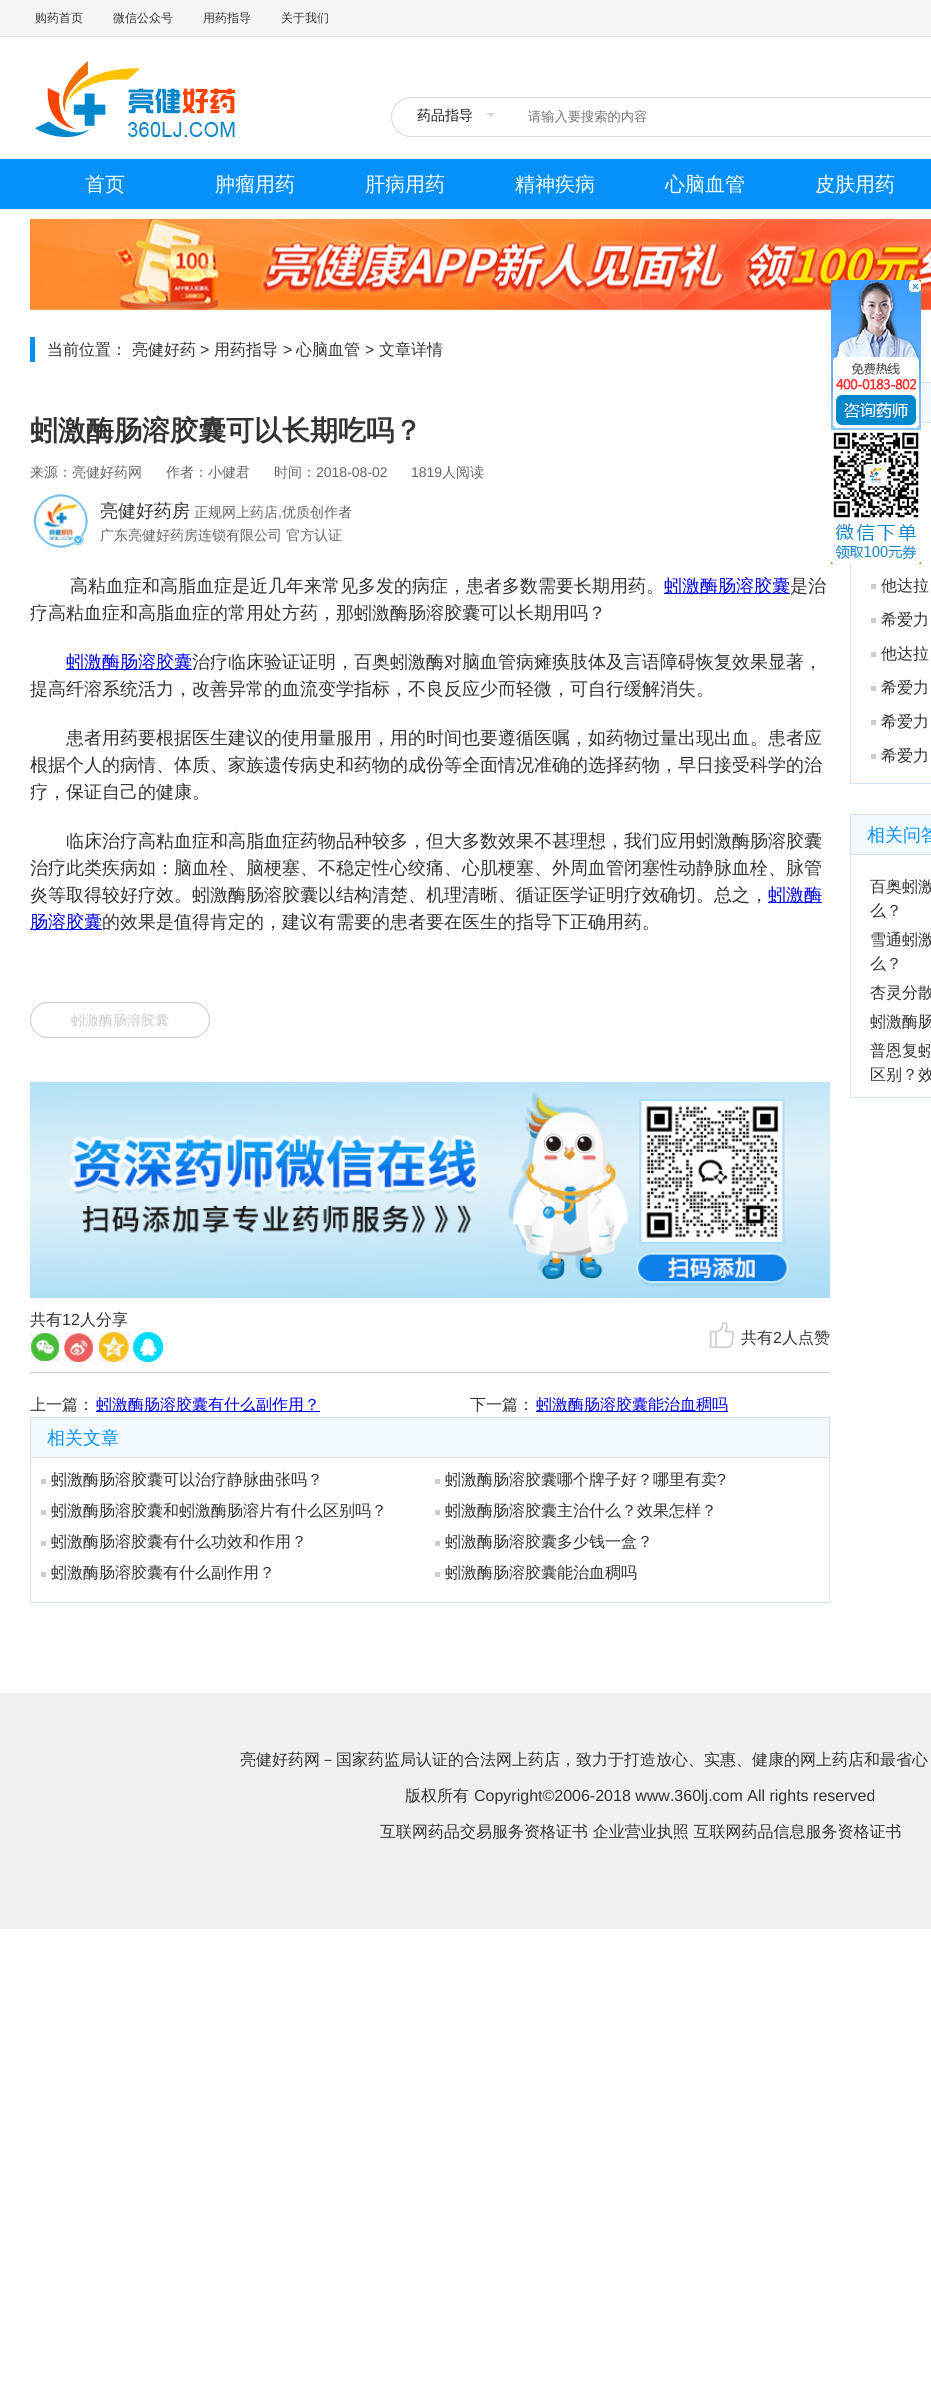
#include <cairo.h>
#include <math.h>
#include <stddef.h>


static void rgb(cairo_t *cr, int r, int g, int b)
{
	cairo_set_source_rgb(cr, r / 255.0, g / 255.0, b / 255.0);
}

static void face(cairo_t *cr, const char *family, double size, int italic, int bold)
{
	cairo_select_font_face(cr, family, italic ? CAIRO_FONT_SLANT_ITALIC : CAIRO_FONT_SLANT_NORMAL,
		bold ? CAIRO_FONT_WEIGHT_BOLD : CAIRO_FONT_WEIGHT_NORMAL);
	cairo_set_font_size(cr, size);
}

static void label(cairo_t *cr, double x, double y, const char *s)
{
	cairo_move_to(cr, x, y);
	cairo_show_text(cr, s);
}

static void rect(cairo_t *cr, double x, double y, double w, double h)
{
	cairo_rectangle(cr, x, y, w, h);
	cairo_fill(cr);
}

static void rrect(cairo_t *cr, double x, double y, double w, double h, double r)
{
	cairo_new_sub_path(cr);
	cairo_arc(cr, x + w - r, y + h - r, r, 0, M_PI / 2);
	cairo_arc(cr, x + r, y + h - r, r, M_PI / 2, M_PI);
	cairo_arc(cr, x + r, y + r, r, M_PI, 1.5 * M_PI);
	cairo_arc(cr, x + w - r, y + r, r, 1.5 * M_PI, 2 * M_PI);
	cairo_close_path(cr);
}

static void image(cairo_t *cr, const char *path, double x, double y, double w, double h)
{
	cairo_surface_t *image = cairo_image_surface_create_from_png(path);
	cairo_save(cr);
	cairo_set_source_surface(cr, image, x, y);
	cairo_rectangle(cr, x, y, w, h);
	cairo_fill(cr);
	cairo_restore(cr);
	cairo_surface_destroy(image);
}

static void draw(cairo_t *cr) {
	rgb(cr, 255, 255, 255);
	cairo_paint(cr);
	rgb(cr, 245, 245, 245);
	rect(cr, 0, 0, 931, 36);
	rgb(cr, 230, 230, 230);
	rect(cr, 0, 36, 931, 1);
	face(cr, "WenQuanYi Zen Hei Medium", 12, 0, 0);
	rgb(cr, 51, 51, 51);
	label(cr, 35, 22, "购药首页");
	label(cr, 113, 22, "微信公众号");
	label(cr, 203, 22, "用药指导");
	label(cr, 281, 22, "关于我们");
	image(cr, "image0.png", 35, 61, 200, 76);
	rrect(cr, 391.5, 97.5, 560, 39, 19.5);
	rgb(cr, 217, 217, 217);
	cairo_set_line_width(cr, 1);
	cairo_stroke(cr);
	image(cr, "image1.png", 486, 113, 9, 4);
	face(cr, "WenQuanYi Zen Hei Medium", 14, 0, 0);
	rgb(cr, 26, 26, 26);
	label(cr, 417, 120, "药品指导");
	face(cr, "WenQuanYi Zen Hei Medium", 13.25, 0, 0);
	rgb(cr, 117, 117, 117);
	label(cr, 528, 121, "请输入要搜索的内容");
	rgb(cr, 6, 145, 249);
	rect(cr, 0, 159, 931, 50);
	face(cr, "WenQuanYi Zen Hei Medium", 20, 0, 0);
	rgb(cr, 255, 255, 255);
	label(cr, 85, 191, "首页");
	label(cr, 215, 191, "肿瘤用药");
	label(cr, 365, 191, "肝病用药");
	label(cr, 515, 191, "精神疾病");
	label(cr, 665, 191, "心脑血管");
	label(cr, 815, 191, "皮肤用药");
	image(cr, "image2.png", 30, 219, 901, 91);
	rgb(cr, 6, 145, 249);
	rect(cr, 30, 337, 5, 25);
	face(cr, "WenQuanYi Zen Hei Medium", 16, 0, 0);
	rgb(cr, 51, 51, 51);
	label(cr, 47, 355, "当前位置：");
	label(cr, 132, 355, "亮健好药");
	face(cr, "Liberation Sans", 16, 0, 0);
	label(cr, 200, 355, ">");
	face(cr, "WenQuanYi Zen Hei Medium", 16, 0, 0);
	label(cr, 214, 355, "用药指导");
	face(cr, "Liberation Sans", 16, 0, 0);
	label(cr, 283, 355, ">");
	face(cr, "WenQuanYi Zen Hei Medium", 16, 0, 0);
	label(cr, 296, 355, "心脑血管");
	face(cr, "Liberation Sans", 16, 0, 0);
	label(cr, 365, 355, ">");
	face(cr, "WenQuanYi Zen Hei Medium", 16, 0, 0);
	label(cr, 379, 355, "文章详情");
	face(cr, "WenQuanYi Zen Hei", 28, 0, 1);
	label(cr, 30, 440, "蚓激酶肠溶胶囊可以长期吃吗？");
	face(cr, "WenQuanYi Zen Hei Medium", 14, 0, 0);
	rgb(cr, 102, 102, 102);
	label(cr, 30, 477, "来源：亮健好药网");
	label(cr, 166, 477, "作者：小健君");
	label(cr, 274, 477, "时间：");
	face(cr, "Liberation Sans", 14, 0, 0);
	label(cr, 316, 477, "2018-08-02");
	label(cr, 411, 477, "1819");
	face(cr, "WenQuanYi Zen Hei Medium", 14, 0, 0);
	label(cr, 442, 477, "人阅读");
	image(cr, "image3.png", 33, 494, 56, 55);
	face(cr, "WenQuanYi Zen Hei Medium", 18, 0, 0);
	rgb(cr, 51, 51, 51);
	label(cr, 100, 517, "亮健好药房");
	face(cr, "WenQuanYi Zen Hei Medium", 14, 0, 0);
	rgb(cr, 102, 102, 102);
	label(cr, 194, 517, "正规网上药店");
	face(cr, "Liberation Sans", 14, 0, 0);
	label(cr, 278, 517, ",");
	face(cr, "WenQuanYi Zen Hei Medium", 14, 0, 0);
	label(cr, 282, 517, "优质创作者");
	label(cr, 100, 540, "广东亮健好药房连锁有限公司 官方认证");
	face(cr, "WenQuanYi Zen Hei Medium", 18, 0, 0);
	rgb(cr, 51, 51, 51);
	label(cr, 70, 592, "高粘血症和高脂血症是近几年来常见多发的病症，患者多数需要长期用药。");
	rgb(cr, 0, 0, 238);
	rect(cr, 664, 593, 126, 1);
	label(cr, 664, 592, "蚓激酶肠溶胶囊");
	rgb(cr, 51, 51, 51);
	label(cr, 790, 592, "是治");
	label(cr, 30, 619, "疗高粘血症和高脂血症的常用处方药，那蚓激酶肠溶胶囊可以长期用吗？");
	rgb(cr, 0, 0, 238);
	rect(cr, 66, 669, 126, 1);
	label(cr, 66, 668, "蚓激酶肠溶胶囊");
	rgb(cr, 51, 51, 51);
	label(cr, 192, 668, "治疗临床验证证明，百奥蚓激酶对脑血管病瘫痪肢体及言语障碍恢复效果显著，");
	label(cr, 30, 695, "提高纤溶系统活力，改善异常的血流变学指标，不良反应少而轻微，可自行缓解消失。");
	label(cr, 66, 744, "患者用药要根据医生建议的使用量服用，用的时间也要遵循医嘱，如药物过量出现出血。患者应");
	label(cr, 30, 771, "根据个人的病情、体质、家族遗传病史和药物的成份等全面情况准确的选择药物，早日接受科学的治");
	label(cr, 30, 798, "疗，保证自己的健康。");
	label(cr, 66, 847, "临床治疗高粘血症和高脂血症药物品种较多，但大多数效果不甚理想，我们应用蚓激酶肠溶胶囊");
	label(cr, 30, 874, "治疗此类疾病如：脑血栓、脑梗塞、不稳定性心绞痛、心肌梗塞、外周血管闭塞性动静脉血栓、脉管");
	label(cr, 30, 901, "炎等取得较好疗效。蚓激酶肠溶胶囊以结构清楚、机理清晰、循证医学证明疗效确切。总之，");
	rgb(cr, 0, 0, 238);
	rect(cr, 768, 902, 54, 1);
	label(cr, 768, 901, "蚓激酶");
	rect(cr, 30, 929, 72, 1);
	label(cr, 30, 928, "肠溶胶囊");
	rgb(cr, 51, 51, 51);
	label(cr, 102, 928, "的效果是值得肯定的，建议有需要的患者要在医生的指导下正确用药。");
	rrect(cr, 30.5, 1002.5, 179, 35, 17.5);
	rgb(cr, 204, 204, 204);
	cairo_stroke(cr);
	face(cr, "WenQuanYi Zen Hei Medium", 14, 0, 0);
	label(cr, 71, 1025, "蚓激酶肠溶胶囊");
	image(cr, "image4.png", 30, 1082, 800, 216);
	rect(cr, 30, 1372, 800, 1);
	face(cr, "WenQuanYi Zen Hei Medium", 16, 0, 0);
	rgb(cr, 51, 51, 51);
	label(cr, 30, 1325, "共有");
	face(cr, "Liberation Sans", 16, 0, 0);
	label(cr, 62, 1325, "12");
	face(cr, "WenQuanYi Zen Hei Medium", 16, 0, 0);
	label(cr, 80, 1325, "人分享");
	image(cr, "image5.png", 30, 1333, 30, 28);
	image(cr, "image6.png", 64, 1333, 30, 29);
	image(cr, "image7.png", 99, 1332, 30, 30);
	image(cr, "image8.png", 133, 1332, 30, 30);
	image(cr, "image9.png", 709, 1322, 26, 26);
	label(cr, 741, 1343, "共有");
	face(cr, "Liberation Sans", 16, 0, 0);
	label(cr, 773, 1343, "2");
	face(cr, "WenQuanYi Zen Hei Medium", 16, 0, 0);
	label(cr, 782, 1343, "人点赞");
	label(cr, 30, 1410, "上一篇：");
	rgb(cr, 0, 0, 238);
	rect(cr, 96, 1411, 224, 1);
	label(cr, 96, 1410, "蚓激酶肠溶胶囊有什么副作用？");
	rgb(cr, 51, 51, 51);
	label(cr, 470, 1410, "下一篇：");
	rgb(cr, 0, 0, 238);
	rect(cr, 536, 1411, 192, 1);
	label(cr, 536, 1410, "蚓激酶肠溶胶囊能治血稠吗");
	cairo_rectangle(cr, 30.5, 1417.5, 799, 185);
	rgb(cr, 211, 226, 244);
	cairo_stroke(cr);
	rgb(cr, 242, 249, 255);
	rect(cr, 31, 1418, 798, 39);
	rgb(cr, 211, 226, 244);
	rect(cr, 31, 1457, 798, 1);
	face(cr, "WenQuanYi Zen Hei Medium", 18, 0, 0);
	rgb(cr, 6, 145, 249);
	label(cr, 47, 1444, "相关文章");
	rgb(cr, 204, 204, 204);
	rect(cr, 41, 1479, 5, 5);
	face(cr, "WenQuanYi Zen Hei Medium", 16, 0, 0);
	rgb(cr, 51, 51, 51);
	label(cr, 51, 1485, "蚓激酶肠溶胶囊可以治疗静脉曲张吗？");
	rgb(cr, 204, 204, 204);
	rect(cr, 435, 1479, 5, 5);
	rgb(cr, 51, 51, 51);
	label(cr, 445, 1485, "蚓激酶肠溶胶囊哪个牌子好？哪里有卖");
	face(cr, "Liberation Sans", 16, 0, 0);
	label(cr, 717, 1485, "?");
	rgb(cr, 204, 204, 204);
	rect(cr, 41, 1510, 5, 5);
	face(cr, "WenQuanYi Zen Hei Medium", 16, 0, 0);
	rgb(cr, 51, 51, 51);
	label(cr, 51, 1516, "蚓激酶肠溶胶囊和蚓激酶肠溶片有什么区别吗？");
	rgb(cr, 204, 204, 204);
	rect(cr, 435, 1510, 5, 5);
	rgb(cr, 51, 51, 51);
	label(cr, 445, 1516, "蚓激酶肠溶胶囊主治什么？效果怎样？");
	rgb(cr, 204, 204, 204);
	rect(cr, 41, 1541, 5, 5);
	rgb(cr, 51, 51, 51);
	label(cr, 51, 1547, "蚓激酶肠溶胶囊有什么功效和作用？");
	rgb(cr, 204, 204, 204);
	rect(cr, 435, 1541, 5, 5);
	rgb(cr, 51, 51, 51);
	label(cr, 445, 1547, "蚓激酶肠溶胶囊多少钱一盒？");
	rgb(cr, 204, 204, 204);
	rect(cr, 41, 1572, 5, 5);
	rgb(cr, 51, 51, 51);
	label(cr, 51, 1578, "蚓激酶肠溶胶囊有什么副作用？");
	rgb(cr, 204, 204, 204);
	rect(cr, 435, 1572, 5, 5);
	rgb(cr, 51, 51, 51);
	label(cr, 445, 1578, "蚓激酶肠溶胶囊能治血稠吗");
	cairo_rectangle(cr, 850.5, 382.5, 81, 401);
	rgb(cr, 211, 226, 244);
	cairo_stroke(cr);
	rgb(cr, 242, 249, 255);
	rect(cr, 921, 383, 10, 39);
	rgb(cr, 211, 226, 244);
	rect(cr, 921, 422, 10, 1);
	rgb(cr, 204, 204, 204);
	rect(cr, 871, 584, 5, 5);
	rgb(cr, 51, 51, 51);
	label(cr, 881, 591, "他达拉");
	rgb(cr, 204, 204, 204);
	rect(cr, 871, 618, 5, 5);
	rgb(cr, 51, 51, 51);
	label(cr, 881, 625, "希爱力");
	rgb(cr, 204, 204, 204);
	rect(cr, 871, 652, 5, 5);
	rgb(cr, 51, 51, 51);
	label(cr, 881, 659, "他达拉");
	rgb(cr, 204, 204, 204);
	rect(cr, 871, 686, 5, 5);
	rgb(cr, 51, 51, 51);
	label(cr, 881, 693, "希爱力");
	rgb(cr, 204, 204, 204);
	rect(cr, 871, 720, 5, 5);
	rgb(cr, 51, 51, 51);
	label(cr, 881, 727, "希爱力");
	rgb(cr, 204, 204, 204);
	rect(cr, 871, 754, 5, 5);
	rgb(cr, 51, 51, 51);
	label(cr, 881, 761, "希爱力");
	cairo_rectangle(cr, 850.5, 814.5, 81, 283);
	rgb(cr, 211, 226, 244);
	cairo_stroke(cr);
	rgb(cr, 242, 249, 255);
	rect(cr, 851, 815, 80, 39);
	rgb(cr, 211, 226, 244);
	rect(cr, 851, 854, 80, 1);
	face(cr, "WenQuanYi Zen Hei Medium", 18, 0, 0);
	rgb(cr, 6, 145, 249);
	label(cr, 867, 841, "相关问答");
	face(cr, "WenQuanYi Zen Hei Medium", 16, 0, 0);
	rgb(cr, 51, 51, 51);
	label(cr, 870, 892, "百奥蚓激");
	label(cr, 870, 916, "么？");
	label(cr, 870, 945, "雪通蚓激");
	label(cr, 870, 969, "么？");
	label(cr, 870, 998, "杏灵分散");
	label(cr, 870, 1027, "蚓激酶肠");
	label(cr, 870, 1056, "普恩复蚓");
	label(cr, 870, 1080, "区别？效");
	rgb(cr, 240, 240, 240);
	rect(cr, 0, 1693, 931, 236);
	rgb(cr, 51, 51, 51);
	label(cr, 240, 1765, "亮健好药网－国家药监局认证的合法网上药店，致力于打造放心、实惠、健康的网上药店和最省心");
	label(cr, 405, 1801, "版权所有");
	face(cr, "Liberation Sans", 16, 0, 0);
	label(cr, 474, 1801, "Copyright©2006-2018 www.360lj.com All rights reserved");
	face(cr, "WenQuanYi Zen Hei Medium", 16, 0, 0);
	label(cr, 380, 1837, "互联网药品交易服务资格证书 企业营业执照 互联网药品信息服务资格证书");
	rgb(cr, 239, 95, 0);
	rect(cr, 831, 280, 90, 284);
	image(cr, "image10.png", 831, 280, 90, 284);
	image(cr, "image11.png", 831, 280, 90, 284);
	image(cr, "image12.png", 909, 280, 12, 12);
}

int main(void) {
	cairo_surface_t *surface = cairo_image_surface_create(CAIRO_FORMAT_RGB24, 931, 2382);
	cairo_t *cr = cairo_create(surface);
	cairo_font_options_t *options = cairo_font_options_create();
	cairo_font_options_set_hint_metrics(options, CAIRO_HINT_METRICS_OFF);
	cairo_font_options_set_hint_style(options, CAIRO_HINT_STYLE_NONE);
	cairo_set_font_options(cr, options);
	cairo_set_miter_limit(cr, 4);
	draw(cr);
	cairo_surface_write_to_png(surface, "render.png");
	cairo_font_options_destroy(options);
	cairo_destroy(cr);
	cairo_surface_destroy(surface);
	return 0;
}
